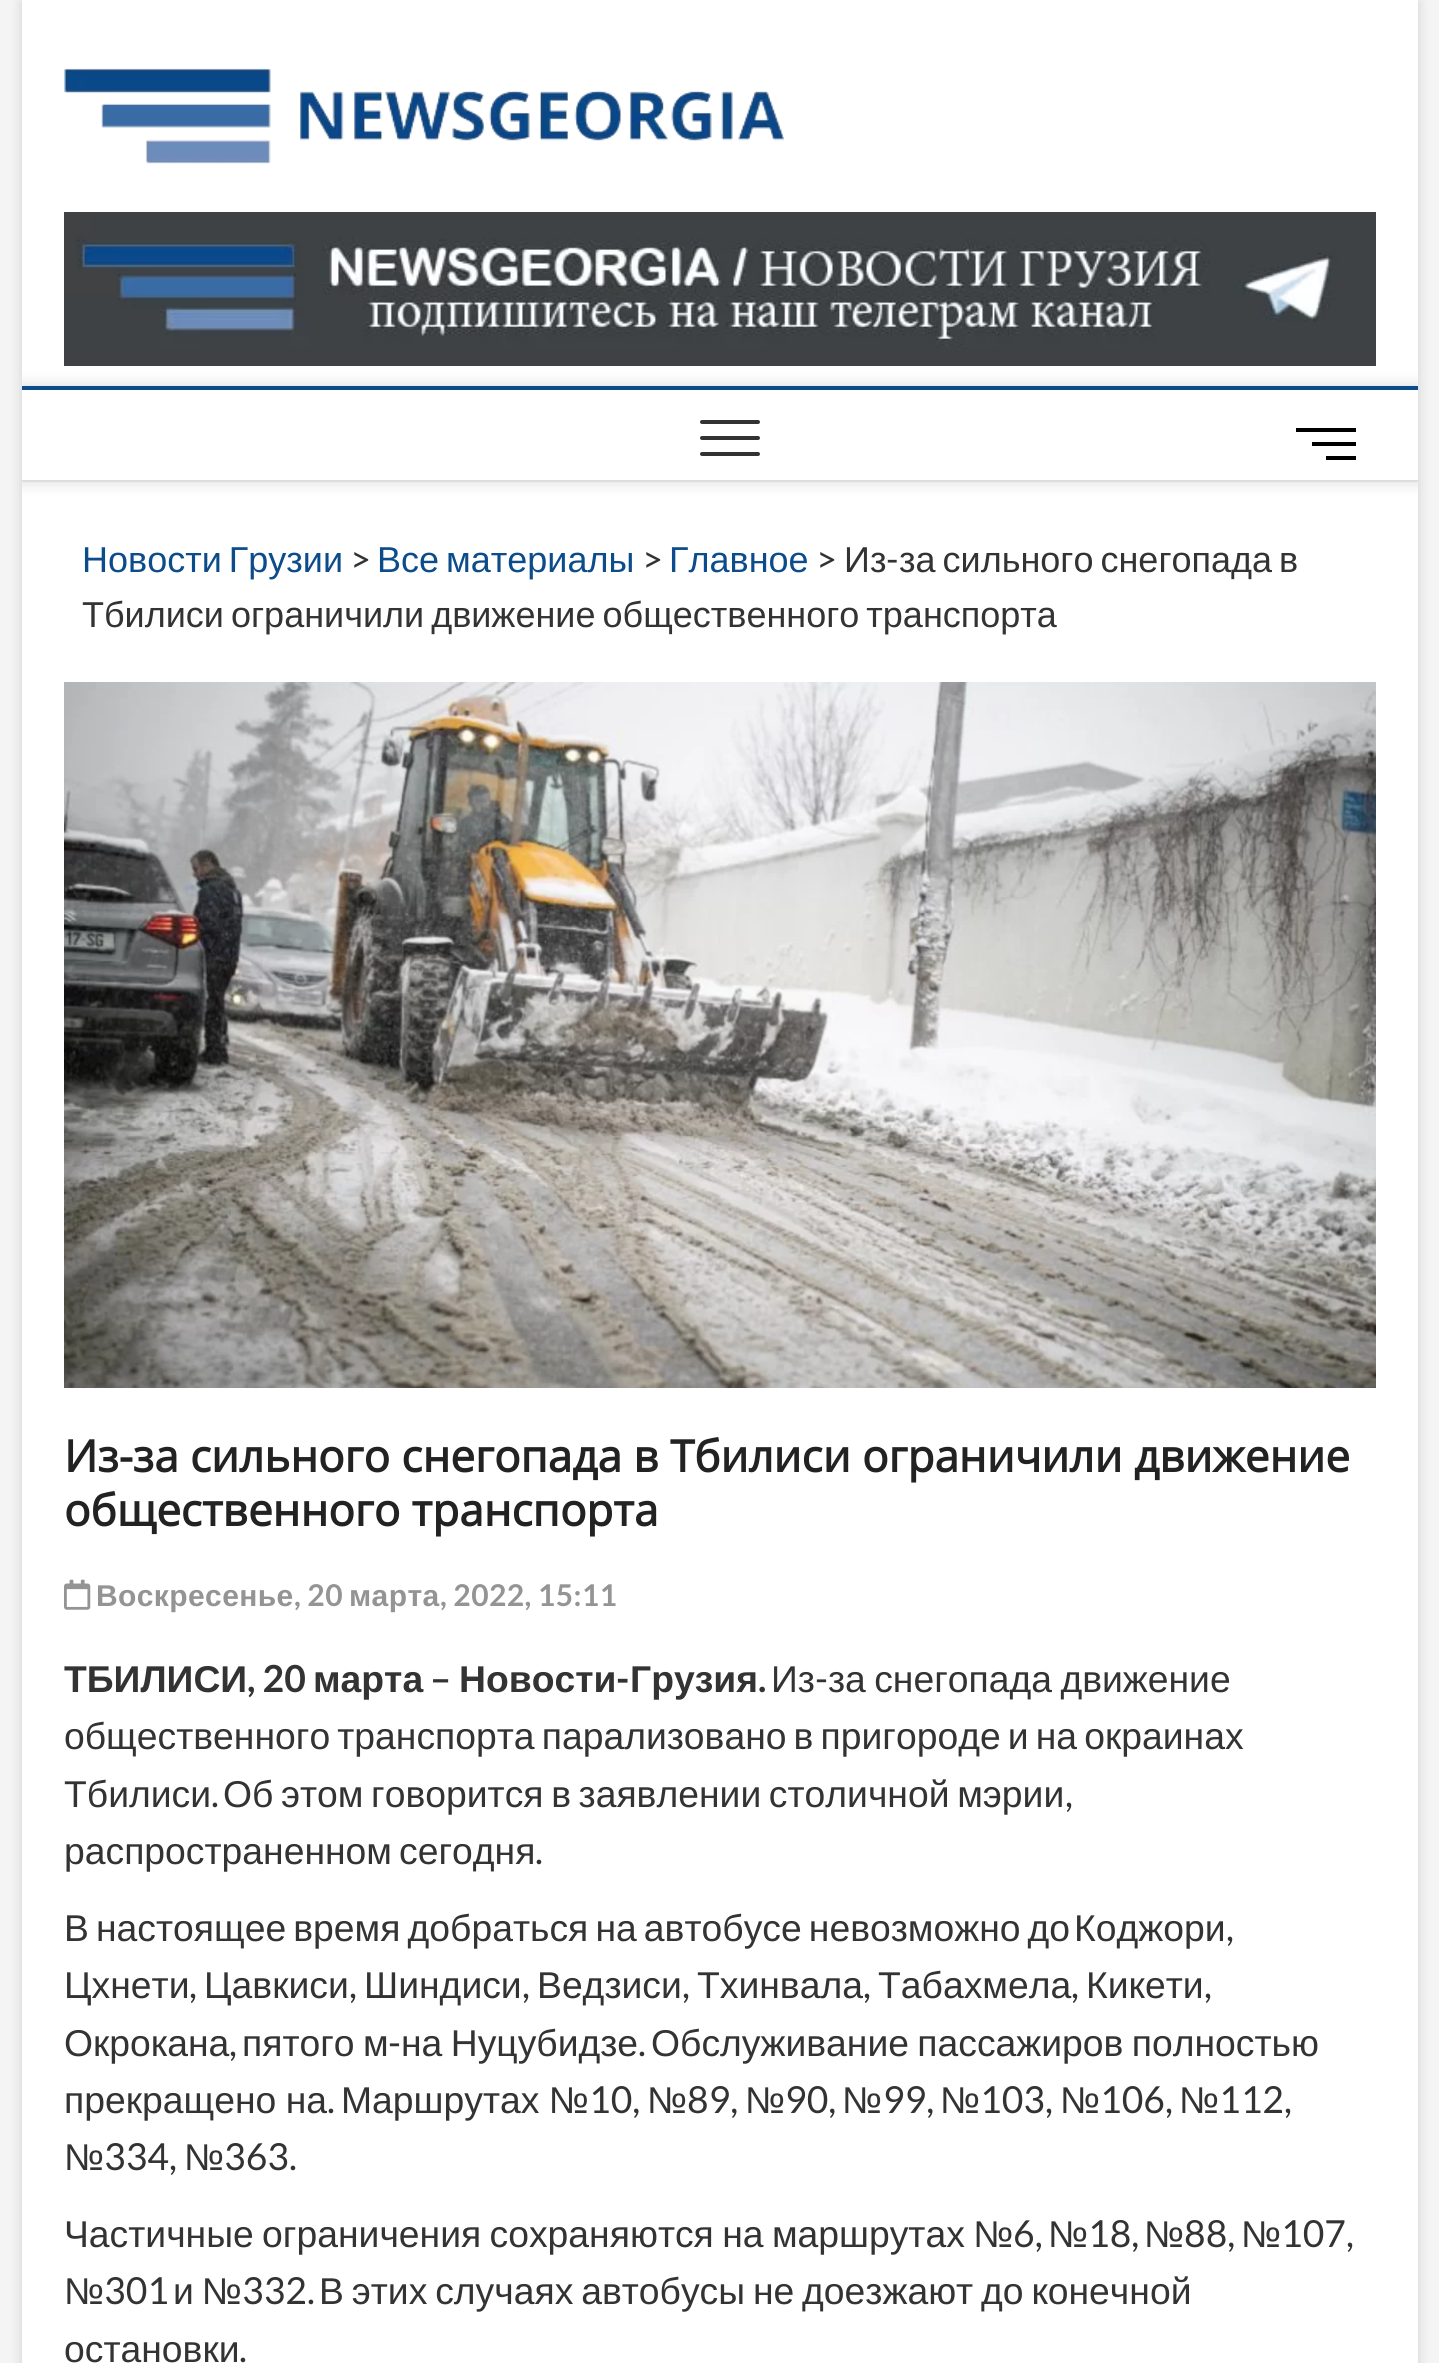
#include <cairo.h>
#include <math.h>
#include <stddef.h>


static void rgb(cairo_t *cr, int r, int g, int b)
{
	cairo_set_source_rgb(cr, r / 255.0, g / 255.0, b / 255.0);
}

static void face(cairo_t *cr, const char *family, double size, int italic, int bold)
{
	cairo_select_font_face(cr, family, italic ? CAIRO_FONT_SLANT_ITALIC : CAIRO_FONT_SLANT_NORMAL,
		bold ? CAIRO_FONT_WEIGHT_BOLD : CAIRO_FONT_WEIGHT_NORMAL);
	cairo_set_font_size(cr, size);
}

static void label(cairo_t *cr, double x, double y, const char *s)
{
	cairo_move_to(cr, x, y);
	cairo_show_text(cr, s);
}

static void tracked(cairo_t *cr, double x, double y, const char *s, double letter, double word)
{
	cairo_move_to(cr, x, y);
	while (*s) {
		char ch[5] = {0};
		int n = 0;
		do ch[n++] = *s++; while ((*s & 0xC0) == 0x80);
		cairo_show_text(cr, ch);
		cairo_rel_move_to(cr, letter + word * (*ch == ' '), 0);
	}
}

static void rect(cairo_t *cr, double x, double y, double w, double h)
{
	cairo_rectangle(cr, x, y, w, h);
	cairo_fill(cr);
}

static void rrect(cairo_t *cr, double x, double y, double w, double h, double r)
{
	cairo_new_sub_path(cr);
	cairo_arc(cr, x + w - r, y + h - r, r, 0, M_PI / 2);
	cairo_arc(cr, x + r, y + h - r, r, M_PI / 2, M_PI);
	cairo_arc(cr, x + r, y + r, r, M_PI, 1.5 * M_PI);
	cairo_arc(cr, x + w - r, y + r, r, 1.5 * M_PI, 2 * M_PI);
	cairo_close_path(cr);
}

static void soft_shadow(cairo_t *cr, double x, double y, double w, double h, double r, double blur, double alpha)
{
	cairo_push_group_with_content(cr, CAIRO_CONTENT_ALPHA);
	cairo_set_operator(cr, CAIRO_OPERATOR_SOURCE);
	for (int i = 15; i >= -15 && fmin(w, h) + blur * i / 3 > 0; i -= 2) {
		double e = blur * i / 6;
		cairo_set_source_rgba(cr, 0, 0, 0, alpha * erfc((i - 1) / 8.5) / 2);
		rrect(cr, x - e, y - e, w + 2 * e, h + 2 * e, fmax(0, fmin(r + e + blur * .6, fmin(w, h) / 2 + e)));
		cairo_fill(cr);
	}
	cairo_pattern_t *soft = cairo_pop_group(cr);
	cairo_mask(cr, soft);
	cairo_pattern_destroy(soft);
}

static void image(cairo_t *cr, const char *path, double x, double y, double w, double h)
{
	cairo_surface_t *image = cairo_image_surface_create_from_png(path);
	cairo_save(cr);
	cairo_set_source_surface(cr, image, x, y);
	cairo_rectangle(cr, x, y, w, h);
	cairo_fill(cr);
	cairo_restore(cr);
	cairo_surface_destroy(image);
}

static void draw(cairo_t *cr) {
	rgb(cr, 244, 244, 244);
	cairo_paint(cr);
	rgb(cr, 0, 0, 0);
	soft_shadow(cr, 22, 2, 1396, 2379, 0, 6, 0.15);
	rgb(cr, 255, 255, 255);
	rect(cr, 22, 0, 1396, 2363);
	image(cr, "image0.png", 64, 68, 720, 96);
	image(cr, "image1.png", 64, 212, 1312, 154);
	cairo_save(cr);
	cairo_rectangle(cr, 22, 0, 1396, 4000);
	cairo_clip(cr);
	cairo_set_fill_rule(cr, CAIRO_FILL_RULE_EVEN_ODD);
	cairo_new_path(cr);
	cairo_move_to(cr, 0, 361);
	cairo_line_to(cr, 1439, 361);
	cairo_line_to(cr, 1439, 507);
	cairo_line_to(cr, 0, 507);
	cairo_close_path(cr);
	cairo_move_to(cr, 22, 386);
	cairo_line_to(cr, 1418, 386);
	cairo_line_to(cr, 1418, 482);
	cairo_line_to(cr, 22, 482);
	cairo_close_path(cr);
	cairo_clip(cr);
	rgb(cr, 0, 0, 0);
	soft_shadow(cr, 22, 386, 1396, 96, 0, 8, 0.15);
	cairo_restore(cr);
	rgb(cr, 12, 76, 138);
	rect(cr, 22, 386, 1396, 4);
	rgb(cr, 221, 221, 221);
	rect(cr, 22, 480, 1396, 2);
	rgb(cr, 51, 51, 51);
	rrect(cr, 700, 436, 60, 4, 2);
	cairo_fill(cr);
	rrect(cr, 700, 420, 60, 4, 2);
	cairo_fill(cr);
	rrect(cr, 700, 452, 60, 4, 2);
	cairo_fill(cr);
	rgb(cr, 0, 0, 0);
	rect(cr, 1312, 442, 44, 4);
	rect(cr, 1296, 428, 60, 4);
	rect(cr, 1326, 456, 30, 4);
	face(cr, "Liberation Sans", 36, 0, 0);
	rgb(cr, 12, 76, 138);
	tracked(cr, 82, 572, "Новости Грузии", 0, -3);
	face(cr, "Lato", 36, 0, 0);
	rgb(cr, 51, 51, 51);
	label(cr, 350, 572, ">");
	face(cr, "Liberation Sans", 36, 0, 0);
	rgb(cr, 12, 76, 138);
	tracked(cr, 377, 572, "Все материалы", 0, -3);
	face(cr, "Lato", 36, 0, 0);
	rgb(cr, 51, 51, 51);
	label(cr, 642, 572, ">");
	face(cr, "Liberation Sans", 36, 0, 0);
	rgb(cr, 12, 76, 138);
	label(cr, 669, 572, "Главное");
	face(cr, "Lato", 36, 0, 0);
	rgb(cr, 51, 51, 51);
	label(cr, 816, 572, ">");
	face(cr, "Liberation Sans", 36, 0, 0);
	label(cr, 844, 572, "Из");
	face(cr, "Lato", 36, 0, 0);
	label(cr, 886, 572, "-");
	face(cr, "Liberation Sans", 36, 0, 0);
	tracked(cr, 899, 572, "за сильного снегопада в", 0, -3);
	tracked(cr, 82, 627, "Тбилиси ограничили движение общественного транспорта", 0, -3);
	image(cr, "image2.png", 64, 682, 1312, 706);
	face(cr, "Open Sans", 44, 0, 1);
	rgb(cr, 34, 34, 34);
	label(cr, 64, 1472, "Из-за сильного снегопада в Тбилиси ограничили движение");
	label(cr, 64, 1526, "общественного транспорта");
	image(cr, "image3.png", 64, 1579, 27, 31);
	face(cr, "Liberation Sans", 30, 0, 1);
	rgb(cr, 148, 148, 148);
	tracked(cr, 96, 1606, "Воскресенье", 0.4, 0);
	face(cr, "Lato", 30, 0, 1);
	tracked(cr, 294, 1606, ", 20", 0.4, 0);
	face(cr, "Liberation Sans", 30, 0, 1);
	tracked(cr, 349, 1606, "марта", 0.4, 0);
	face(cr, "Lato", 30, 0, 1);
	tracked(cr, 440, 1606, ", 2022, 15:11", 0.4, 0);
	face(cr, "Liberation Sans", 37.3, 0, 1);
	rgb(cr, 51, 51, 51);
	label(cr, 64, 1692, "ТБИЛИСИ");
	face(cr, "Lato", 37.3, 0, 1);
	label(cr, 247, 1692, ", 20");
	face(cr, "Liberation Sans", 37.3, 0, 1);
	label(cr, 313, 1692, "марта");
	face(cr, "Lato", 37.3, 0, 1);
	label(cr, 430, 1692, "–");
	face(cr, "Liberation Sans", 37.3, 0, 1);
	label(cr, 459, 1692, "Новости");
	face(cr, "Lato", 37.3, 0, 1);
	label(cr, 616, 1692, "-");
	face(cr, "Liberation Sans", 37.3, 0, 1);
	label(cr, 630, 1692, "Грузия");
	face(cr, "Liberation Sans", 37.3, 0, 0);
	label(cr, 771, 1692, "Из");
	face(cr, "Lato", 37.3, 0, 0);
	label(cr, 815, 1692, "-");
	face(cr, "Liberation Sans", 37.3, 0, 0);
	tracked(cr, 828, 1692, "за снегопада движение", 0, -2);
	face(cr, "Lato", 37.3, 0, 1);
	label(cr, 758, 1692, ".");
	face(cr, "Liberation Sans", 37.3, 0, 0);
	tracked(cr, 64, 1749, "общественного транспорта парализовано в пригороде и на окраинах", 0, -3.25);
	label(cr, 64, 1807, "Тбилиси");
	face(cr, "Lato", 37.3, 0, 0);
	label(cr, 211, 1807, ".");
	face(cr, "Liberation Sans", 37.3, 0, 0);
	tracked(cr, 223, 1807, "Об этом говорится в заявлении столичной мэрии", 0, -2.75);
	face(cr, "Lato", 37.3, 0, 0);
	label(cr, 1065, 1807, ",");
	face(cr, "Liberation Sans", 37.3, 0, 0);
	tracked(cr, 64, 1864, "распространенном сегодня", 0, -3.25);
	face(cr, "Lato", 37.3, 0, 0);
	label(cr, 535, 1864, ".");
	face(cr, "Liberation Sans", 37.3, 0, 0);
	tracked(cr, 64, 1941, "В настоящее время добраться на автобусе невозможно до", 0, -3.25);
	label(cr, 1074, 1941, "Коджори");
	face(cr, "Lato", 37.3, 0, 0);
	label(cr, 1226, 1941, ",");
	face(cr, "Liberation Sans", 37.3, 0, 0);
	label(cr, 64, 1998, "Цхнети");
	face(cr, "Lato", 37.3, 0, 0);
	label(cr, 189, 1998, ",");
	face(cr, "Liberation Sans", 37.3, 0, 0);
	label(cr, 204, 1998, "Цавкиси");
	face(cr, "Lato", 37.3, 0, 0);
	label(cr, 349, 1998, ",");
	face(cr, "Liberation Sans", 37.3, 0, 0);
	label(cr, 364, 1998, "Шиндиси");
	face(cr, "Lato", 37.3, 0, 0);
	label(cr, 522, 1998, ",");
	face(cr, "Liberation Sans", 37.3, 0, 0);
	label(cr, 537, 1998, "Ведзиси");
	face(cr, "Lato", 37.3, 0, 0);
	label(cr, 682, 1998, ",");
	face(cr, "Liberation Sans", 37.3, 0, 0);
	label(cr, 697, 1998, "Тхинвала");
	face(cr, "Lato", 37.3, 0, 0);
	label(cr, 863, 1998, ",");
	face(cr, "Liberation Sans", 37.3, 0, 0);
	label(cr, 878, 1998, "Табахмела");
	face(cr, "Lato", 37.3, 0, 0);
	label(cr, 1071, 1998, ",");
	face(cr, "Liberation Sans", 37.3, 0, 0);
	label(cr, 1086, 1998, "Кикети");
	face(cr, "Lato", 37.3, 0, 0);
	label(cr, 1204, 1998, ",");
	face(cr, "Liberation Sans", 37.3, 0, 0);
	label(cr, 64, 2056, "Окрокана");
	tracked(cr, 242, 2056, "пятого м", 0, -2);
	face(cr, "Lato", 37.3, 0, 0);
	label(cr, 388, 2056, "-");
	face(cr, "Liberation Sans", 37.3, 0, 0);
	tracked(cr, 401, 2056, "на Нуцубидзе", 0, -2);
	tracked(cr, 651, 2056, "Обслуживание пассажиров полностью", 0, -2);
	face(cr, "Lato", 37.3, 0, 0);
	label(cr, 229, 2056, ",");
	label(cr, 638, 2056, ".");
	face(cr, "Liberation Sans", 37.3, 0, 0);
	tracked(cr, 64, 2113, "прекращено на", 0, -1);
	face(cr, "Lato", 37.3, 0, 0);
	label(cr, 327, 2113, ".");
	face(cr, "Liberation Sans", 37.3, 0, 0);
	tracked(cr, 341, 2113, "Маршрутах №", 0, -1);
	face(cr, "Lato", 37.3, 0, 0);
	label(cr, 589, 2113, "10,");
	face(cr, "Liberation Sans", 37.3, 0, 0);
	label(cr, 647, 2113, "№");
	face(cr, "Lato", 37.3, 0, 0);
	label(cr, 687, 2113, "89,");
	face(cr, "Liberation Sans", 37.3, 0, 0);
	label(cr, 745, 2113, "№");
	face(cr, "Lato", 37.3, 0, 0);
	label(cr, 785, 2113, "90,");
	face(cr, "Liberation Sans", 37.3, 0, 0);
	label(cr, 842, 2113, "№");
	face(cr, "Lato", 37.3, 0, 0);
	label(cr, 883, 2113, "99,");
	face(cr, "Liberation Sans", 37.3, 0, 0);
	label(cr, 940, 2113, "№");
	face(cr, "Lato", 37.3, 0, 0);
	label(cr, 980, 2113, "103,");
	face(cr, "Liberation Sans", 37.3, 0, 0);
	label(cr, 1060, 2113, "№");
	face(cr, "Lato", 37.3, 0, 0);
	label(cr, 1100, 2113, "106,");
	face(cr, "Liberation Sans", 37.3, 0, 0);
	label(cr, 1179, 2113, "№");
	face(cr, "Lato", 37.3, 0, 0);
	label(cr, 1219, 2113, "112,");
	face(cr, "Liberation Sans", 37.3, 0, 0);
	label(cr, 64, 2170, "№");
	face(cr, "Lato", 37.3, 0, 0);
	label(cr, 104, 2170, "334,");
	face(cr, "Liberation Sans", 37.3, 0, 0);
	label(cr, 184, 2170, "№");
	face(cr, "Lato", 37.3, 0, 0);
	label(cr, 224, 2170, "363.");
	face(cr, "Liberation Sans", 37.3, 0, 0);
	tracked(cr, 64, 2247, "Частичные ограничения сохраняются на маршрутах №", 0, -2);
	face(cr, "Lato", 37.3, 0, 0);
	label(cr, 1013, 2247, "6,");
	face(cr, "Liberation Sans", 37.3, 0, 0);
	label(cr, 1048, 2247, "№");
	face(cr, "Lato", 37.3, 0, 0);
	label(cr, 1088, 2247, "18,");
	face(cr, "Liberation Sans", 37.3, 0, 0);
	label(cr, 1144, 2247, "№");
	face(cr, "Lato", 37.3, 0, 0);
	label(cr, 1184, 2247, "88,");
	face(cr, "Liberation Sans", 37.3, 0, 0);
	label(cr, 1241, 2247, "№");
	face(cr, "Lato", 37.3, 0, 0);
	label(cr, 1281, 2247, "107,");
	face(cr, "Liberation Sans", 37.3, 0, 0);
	label(cr, 64, 2304, "№");
	face(cr, "Lato", 37.3, 0, 0);
	label(cr, 104, 2304, "301");
	face(cr, "Liberation Sans", 37.3, 0, 0);
	tracked(cr, 173, 2304, "и №", 0, -2.5);
	face(cr, "Lato", 37.3, 0, 0);
	label(cr, 242, 2304, "332.");
	face(cr, "Liberation Sans", 37.3, 0, 0);
	tracked(cr, 319, 2304, "В этих случаях автобусы не доезжают до конечной", 0, -2.5);
	label(cr, 64, 2362, "остановки");
	face(cr, "Lato", 37.3, 0, 0);
	label(cr, 239, 2362, ".");
}

int main(void) {
	cairo_surface_t *surface = cairo_image_surface_create(CAIRO_FORMAT_RGB24, 1439, 2363);
	cairo_t *cr = cairo_create(surface);
	cairo_font_options_t *options = cairo_font_options_create();
	cairo_font_options_set_hint_metrics(options, CAIRO_HINT_METRICS_OFF);
	cairo_font_options_set_hint_style(options, CAIRO_HINT_STYLE_NONE);
	cairo_set_font_options(cr, options);
	cairo_set_miter_limit(cr, 4);
	draw(cr);
	cairo_surface_write_to_png(surface, "render.png");
	cairo_font_options_destroy(options);
	cairo_destroy(cr);
	cairo_surface_destroy(surface);
	return 0;
}
